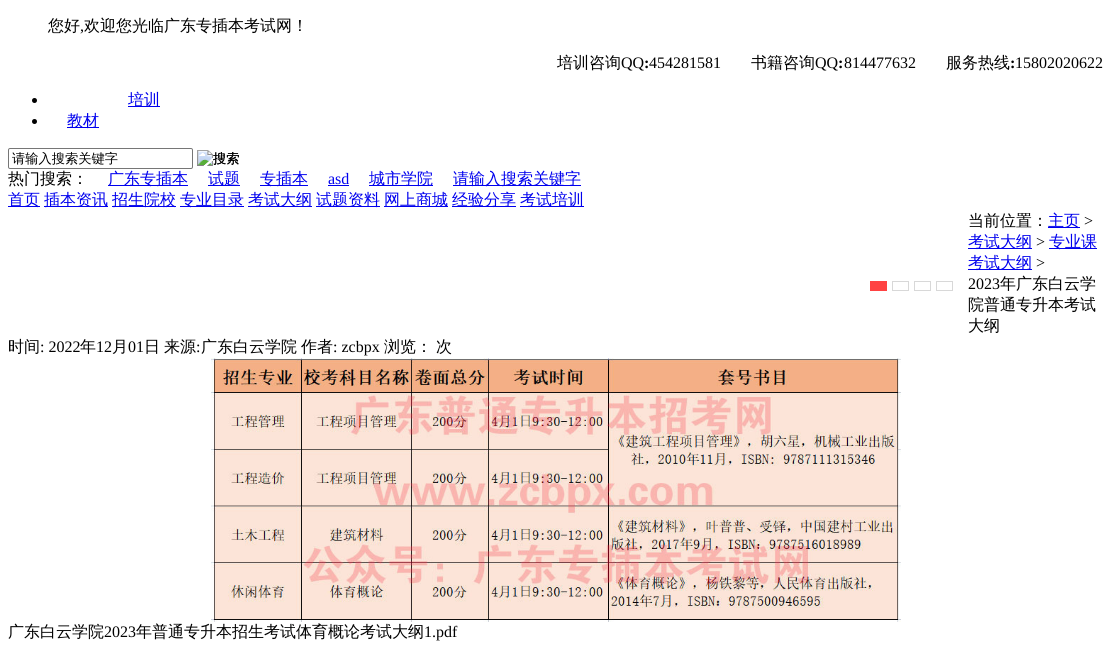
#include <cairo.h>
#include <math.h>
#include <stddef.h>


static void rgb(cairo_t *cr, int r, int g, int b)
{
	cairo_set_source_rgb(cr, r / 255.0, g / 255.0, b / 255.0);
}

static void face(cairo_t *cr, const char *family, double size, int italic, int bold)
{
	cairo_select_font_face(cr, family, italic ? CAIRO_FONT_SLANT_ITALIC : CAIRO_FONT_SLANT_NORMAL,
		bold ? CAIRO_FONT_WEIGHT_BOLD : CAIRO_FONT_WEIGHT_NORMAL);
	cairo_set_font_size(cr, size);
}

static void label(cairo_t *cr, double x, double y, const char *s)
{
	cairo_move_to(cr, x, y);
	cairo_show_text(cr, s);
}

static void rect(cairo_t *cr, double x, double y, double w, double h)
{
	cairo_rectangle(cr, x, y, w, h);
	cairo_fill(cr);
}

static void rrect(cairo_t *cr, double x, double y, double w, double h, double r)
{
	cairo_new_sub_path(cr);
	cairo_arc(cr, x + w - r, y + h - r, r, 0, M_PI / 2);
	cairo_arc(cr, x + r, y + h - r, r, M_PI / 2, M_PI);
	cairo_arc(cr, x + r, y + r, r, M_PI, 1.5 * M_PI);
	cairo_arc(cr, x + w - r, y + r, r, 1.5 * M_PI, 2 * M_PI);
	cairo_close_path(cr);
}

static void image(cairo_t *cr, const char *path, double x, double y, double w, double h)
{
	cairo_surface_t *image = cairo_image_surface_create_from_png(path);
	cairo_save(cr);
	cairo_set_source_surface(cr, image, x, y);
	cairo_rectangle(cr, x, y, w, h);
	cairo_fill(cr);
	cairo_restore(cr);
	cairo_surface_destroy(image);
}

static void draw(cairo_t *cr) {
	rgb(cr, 255, 255, 255);
	cairo_paint(cr);
	face(cr, "WenQuanYi Zen Hei Medium", 16, 0, 0);
	rgb(cr, 0, 0, 0);
	label(cr, 48, 31, "您好");
	face(cr, "Liberation Serif", 16, 0, 0);
	label(cr, 80, 31, ",");
	face(cr, "WenQuanYi Zen Hei Medium", 16, 0, 0);
	label(cr, 84, 31, "欢迎您光临广东专插本考试网！");
	label(cr, 557, 68, "培训咨询");
	face(cr, "Liberation Serif", 16, 0, 0);
	label(cr, 621, 68, "QQ");
	face(cr, "Liberation Serif", 16, 0, 1);
	label(cr, 644, 68, ":");
	face(cr, "Liberation Serif", 16, 0, 0);
	label(cr, 649, 68, "454281581");
	face(cr, "WenQuanYi Zen Hei Medium", 16, 0, 0);
	label(cr, 751, 68, "书籍咨询");
	face(cr, "Liberation Serif", 16, 0, 0);
	label(cr, 815, 68, "QQ");
	face(cr, "Liberation Serif", 16, 0, 1);
	label(cr, 838, 68, ":");
	face(cr, "Liberation Serif", 16, 0, 0);
	label(cr, 844, 68, "814477632");
	face(cr, "WenQuanYi Zen Hei Medium", 16, 0, 0);
	label(cr, 946, 68, "服务热线");
	face(cr, "Liberation Serif", 16, 0, 1);
	label(cr, 1010, 68, ":");
	face(cr, "Liberation Serif", 16, 0, 0);
	label(cr, 1015, 68, "15802020622");
	cairo_new_path(cr);
	cairo_arc(cr, 34.5, 100.5, 2.5, 0, 2 * M_PI);
	cairo_fill(cr);
	rgb(cr, 0, 0, 238);
	rect(cr, 128, 106, 32, 1);
	face(cr, "WenQuanYi Zen Hei Medium", 16, 0, 0);
	label(cr, 128, 105, "培训");
	rgb(cr, 0, 0, 0);
	cairo_new_path(cr);
	cairo_arc(cr, 34.5, 121.5, 2.5, 0, 2 * M_PI);
	cairo_fill(cr);
	rgb(cr, 0, 0, 238);
	rect(cr, 67, 127, 32, 1);
	label(cr, 67, 126, "教材");
	rrect(cr, 8.5, 148.5, 184, 20, 1.5);
	rgb(cr, 118, 118, 118);
	cairo_set_line_width(cr, 1);
	cairo_stroke(cr);
	face(cr, "WenQuanYi Zen Hei Medium", 13.25, 0, 0);
	rgb(cr, 0, 0, 0);
	label(cr, 12, 163, "请输入搜索关键字");
	image(cr, "image0.png", 197, 150, 42, 16);
	label(cr, 213, 163, "搜索");
	face(cr, "WenQuanYi Zen Hei Medium", 16, 0, 0);
	label(cr, 8, 184, "热门搜索：");
	rgb(cr, 0, 0, 238);
	rect(cr, 108, 185, 80, 1);
	label(cr, 108, 184, "广东专插本");
	rect(cr, 208, 185, 32, 1);
	label(cr, 208, 184, "试题");
	rect(cr, 260, 185, 48, 1);
	label(cr, 260, 184, "专插本");
	face(cr, "Liberation Serif", 16, 0, 0);
	label(cr, 328, 184, "asd");
	rect(cr, 328, 185, 21, 1);
	rect(cr, 369, 185, 64, 1);
	face(cr, "WenQuanYi Zen Hei Medium", 16, 0, 0);
	label(cr, 369, 184, "城市学院");
	rect(cr, 453, 185, 128, 1);
	label(cr, 453, 184, "请输入搜索关键字");
	rect(cr, 8, 206, 32, 1);
	label(cr, 8, 205, "首页");
	rect(cr, 44, 206, 64, 1);
	label(cr, 44, 205, "插本资讯");
	rect(cr, 112, 206, 64, 1);
	label(cr, 112, 205, "招生院校");
	rect(cr, 180, 206, 64, 1);
	label(cr, 180, 205, "专业目录");
	rect(cr, 248, 206, 64, 1);
	label(cr, 248, 205, "考试大纲");
	rect(cr, 316, 206, 64, 1);
	label(cr, 316, 205, "试题资料");
	rect(cr, 384, 206, 64, 1);
	label(cr, 384, 205, "网上商城");
	rect(cr, 452, 206, 64, 1);
	label(cr, 452, 205, "经验分享");
	rect(cr, 520, 206, 64, 1);
	label(cr, 520, 205, "考试培训");
	rgb(cr, 0, 0, 0);
	label(cr, 968, 226, "当前位置：");
	rgb(cr, 0, 0, 238);
	rect(cr, 1048, 227, 32, 1);
	label(cr, 1048, 226, "主页");
	face(cr, "Liberation Serif", 16, 0, 0);
	rgb(cr, 0, 0, 0);
	label(cr, 1084, 226, ">");
	rgb(cr, 0, 0, 238);
	rect(cr, 968, 248, 64, 1);
	face(cr, "WenQuanYi Zen Hei Medium", 16, 0, 0);
	label(cr, 968, 247, "考试大纲");
	face(cr, "Liberation Serif", 16, 0, 0);
	rgb(cr, 0, 0, 0);
	label(cr, 1036, 247, ">");
	rgb(cr, 0, 0, 238);
	rect(cr, 1049, 248, 48, 1);
	face(cr, "WenQuanYi Zen Hei Medium", 16, 0, 0);
	label(cr, 1049, 247, "专业课");
	rect(cr, 968, 269, 64, 1);
	label(cr, 968, 268, "考试大纲");
	face(cr, "Liberation Serif", 16, 0, 0);
	rgb(cr, 0, 0, 0);
	label(cr, 1036, 268, ">");
	label(cr, 968, 289, "2023");
	face(cr, "WenQuanYi Zen Hei Medium", 16, 0, 0);
	label(cr, 1000, 289, "年广东白云学");
	label(cr, 968, 310, "院普通专升本考试");
	label(cr, 968, 331, "大纲");
	label(cr, 8, 352, "时间");
	face(cr, "Liberation Serif", 16, 0, 0);
	label(cr, 40, 352, ": 2022");
	face(cr, "WenQuanYi Zen Hei Medium", 16, 0, 0);
	label(cr, 80, 352, "年");
	face(cr, "Liberation Serif", 16, 0, 0);
	label(cr, 96, 352, "12");
	face(cr, "WenQuanYi Zen Hei Medium", 16, 0, 0);
	label(cr, 112, 352, "月");
	face(cr, "Liberation Serif", 16, 0, 0);
	label(cr, 128, 352, "01");
	face(cr, "WenQuanYi Zen Hei Medium", 16, 0, 0);
	label(cr, 144, 352, "日");
	label(cr, 164, 352, "来源");
	face(cr, "Liberation Serif", 16, 0, 0);
	label(cr, 196, 352, ":");
	face(cr, "WenQuanYi Zen Hei Medium", 16, 0, 0);
	label(cr, 201, 352, "广东白云学院");
	label(cr, 301, 352, "作者");
	face(cr, "Liberation Serif", 16, 0, 0);
	label(cr, 333, 352, ": zcbpx");
	face(cr, "WenQuanYi Zen Hei Medium", 16, 0, 0);
	label(cr, 384, 352, "浏览：");
	label(cr, 436, 352, "次");
	image(cr, "image1.png", 211, 358, 690, 264);
	label(cr, 8, 637, "广东白云学院");
	face(cr, "Liberation Serif", 16, 0, 0);
	label(cr, 104, 637, "2023");
	face(cr, "WenQuanYi Zen Hei Medium", 16, 0, 0);
	label(cr, 136, 637, "年普通专升本招生考试体育概论考试大纲");
	face(cr, "Liberation Serif", 16, 0, 0);
	label(cr, 424, 637, "1.pdf");
	rgb(cr, 255, 66, 66);
	rect(cr, 870, 281, 17, 10);
	cairo_rectangle(cr, 892.5, 281.5, 16, 9);
	rgb(cr, 216, 216, 216);
	cairo_stroke(cr);
	cairo_rectangle(cr, 914.5, 281.5, 16, 9);
	cairo_stroke(cr);
	cairo_rectangle(cr, 936.5, 281.5, 16, 9);
	cairo_stroke(cr);
}

int main(void) {
	cairo_surface_t *surface = cairo_image_surface_create(CAIRO_FORMAT_RGB24, 1111, 653);
	cairo_t *cr = cairo_create(surface);
	cairo_font_options_t *options = cairo_font_options_create();
	cairo_font_options_set_hint_metrics(options, CAIRO_HINT_METRICS_OFF);
	cairo_font_options_set_hint_style(options, CAIRO_HINT_STYLE_NONE);
	cairo_set_font_options(cr, options);
	cairo_set_miter_limit(cr, 4);
	draw(cr);
	cairo_surface_write_to_png(surface, "render.png");
	cairo_font_options_destroy(options);
	cairo_destroy(cr);
	cairo_surface_destroy(surface);
	return 0;
}
